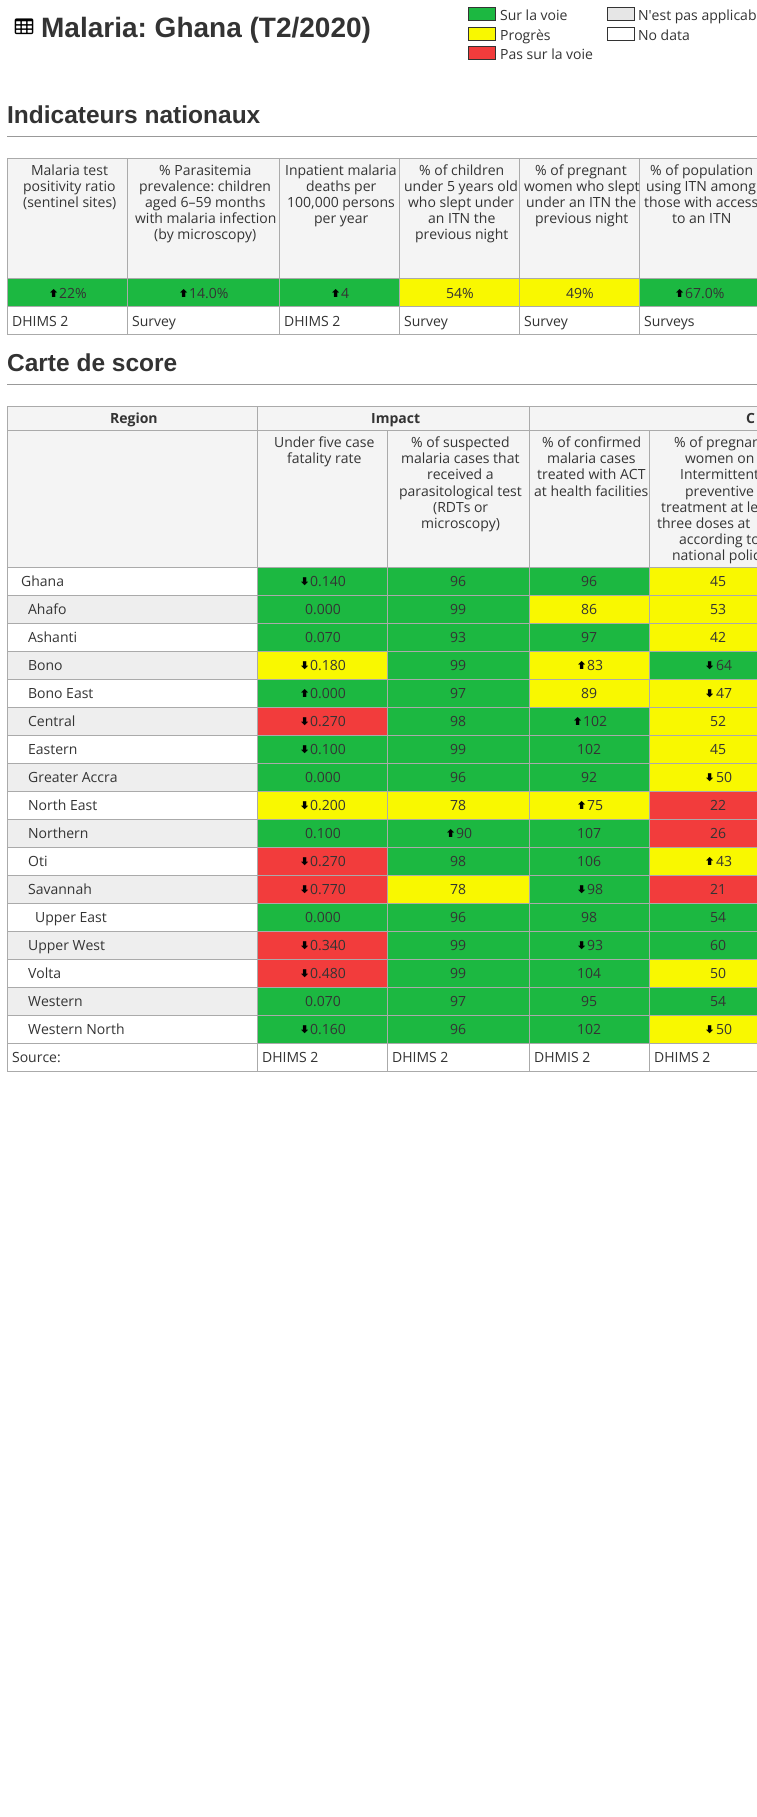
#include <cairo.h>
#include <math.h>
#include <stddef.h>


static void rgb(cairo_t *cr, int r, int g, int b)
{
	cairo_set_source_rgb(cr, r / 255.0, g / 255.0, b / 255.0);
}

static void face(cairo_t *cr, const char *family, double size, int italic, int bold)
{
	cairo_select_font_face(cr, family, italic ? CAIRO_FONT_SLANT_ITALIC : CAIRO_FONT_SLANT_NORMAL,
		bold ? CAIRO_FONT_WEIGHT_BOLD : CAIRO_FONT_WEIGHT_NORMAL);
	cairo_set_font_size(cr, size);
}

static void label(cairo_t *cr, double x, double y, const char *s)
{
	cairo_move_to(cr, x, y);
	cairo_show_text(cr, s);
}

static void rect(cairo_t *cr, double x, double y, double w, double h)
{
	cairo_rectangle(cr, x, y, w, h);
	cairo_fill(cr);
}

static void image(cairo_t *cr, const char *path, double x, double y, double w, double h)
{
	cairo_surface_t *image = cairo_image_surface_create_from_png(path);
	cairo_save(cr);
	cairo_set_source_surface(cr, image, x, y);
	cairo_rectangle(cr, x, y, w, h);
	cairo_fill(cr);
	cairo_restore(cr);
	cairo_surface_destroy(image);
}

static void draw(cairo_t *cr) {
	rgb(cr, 255, 255, 255);
	cairo_paint(cr);
	image(cr, "image0.png", 14, 18, 20, 17);
	face(cr, "Liberation Sans", 28, 0, 1);
	rgb(cr, 51, 51, 51);
	label(cr, 41, 37, "Malaria: Ghana (T2/2020)");
	rgb(cr, 28, 184, 65);
	cairo_rectangle(cr, 468.5, 7.5, 27, 13);
	cairo_fill_preserve(cr);
	rgb(cr, 51, 51, 51);
	cairo_set_line_width(cr, 1);
	cairo_stroke(cr);
	face(cr, "Open Sans", 14, 0, 0);
	label(cr, 500, 20, "Sur la voie");
	rgb(cr, 249, 248, 0);
	cairo_rectangle(cr, 468.5, 27.5, 27, 13);
	cairo_fill_preserve(cr);
	rgb(cr, 51, 51, 51);
	cairo_stroke(cr);
	label(cr, 500, 40, "Progrès");
	rgb(cr, 242, 60, 60);
	cairo_rectangle(cr, 468.5, 46.5, 27, 13);
	cairo_fill_preserve(cr);
	rgb(cr, 51, 51, 51);
	cairo_stroke(cr);
	label(cr, 500, 59, "Pas sur la voie");
	rgb(cr, 230, 230, 230);
	cairo_rectangle(cr, 607.5, 7.5, 27, 13);
	cairo_fill_preserve(cr);
	rgb(cr, 51, 51, 51);
	cairo_stroke(cr);
	label(cr, 638, 20, "N'est pas applicab");
	cairo_rectangle(cr, 607.5, 27.5, 27, 13);
	cairo_stroke(cr);
	label(cr, 638, 40, "No data");
	rgb(cr, 153, 153, 153);
	rect(cr, 7, 136, 750, 1);
	face(cr, "Liberation Sans", 24.5, 0, 1);
	rgb(cr, 51, 51, 51);
	label(cr, 7, 123, "Indicateurs nationaux");
	rgb(cr, 170, 170, 170);
	rect(cr, 7, 158, 1, 149);
	rgb(cr, 244, 244, 244);
	rect(cr, 8, 159, 119, 119);
	rgb(cr, 170, 170, 170);
	rect(cr, 8, 158, 749, 1);
	rect(cr, 127, 158, 1, 177);
	rect(cr, 8, 278, 120, 1);
	face(cr, "Open Sans", 14, 0, 0);
	rgb(cr, 51, 51, 51);
	label(cr, 31, 175, "Malaria test");
	label(cr, 23, 191, "positivity ratio");
	label(cr, 23, 207, "(sentinel sites)");
	rgb(cr, 244, 244, 244);
	rect(cr, 128, 159, 151, 119);
	rgb(cr, 170, 170, 170);
	rect(cr, 279, 158, 1, 177);
	rect(cr, 128, 278, 152, 1);
	rgb(cr, 51, 51, 51);
	label(cr, 159, 175, "% Parasitemia");
	label(cr, 139, 191, "prevalence: children");
	label(cr, 145, 207, "aged 6–59 months");
	label(cr, 135, 223, "with malaria infection");
	label(cr, 154, 239, "(by microscopy)");
	rgb(cr, 244, 244, 244);
	rect(cr, 280, 159, 119, 119);
	rgb(cr, 170, 170, 170);
	rect(cr, 399, 158, 1, 177);
	rect(cr, 280, 278, 120, 1);
	rgb(cr, 51, 51, 51);
	label(cr, 285, 175, "Inpatient malaria");
	label(cr, 306, 191, "deaths per");
	label(cr, 287, 207, "100,000 persons");
	label(cr, 314, 223, "per year");
	rgb(cr, 244, 244, 244);
	rect(cr, 400, 159, 119, 119);
	rgb(cr, 170, 170, 170);
	rect(cr, 519, 158, 1, 177);
	rect(cr, 400, 278, 120, 1);
	rgb(cr, 51, 51, 51);
	label(cr, 419, 175, "% of children");
	label(cr, 404, 191, "under 5 years old");
	label(cr, 408, 207, "who slept under");
	label(cr, 428, 223, "an ITN the");
	label(cr, 415, 239, "previous night");
	rgb(cr, 244, 244, 244);
	rect(cr, 520, 159, 119, 119);
	rgb(cr, 170, 170, 170);
	rect(cr, 639, 158, 1, 177);
	rect(cr, 520, 278, 237, 1);
	rgb(cr, 51, 51, 51);
	label(cr, 535, 175, "% of pregnant");
	label(cr, 524, 191, "women who slept");
	label(cr, 526, 207, "under an ITN the");
	label(cr, 535, 223, "previous night");
	rgb(cr, 244, 244, 244);
	rect(cr, 640, 159, 117, 119);
	rgb(cr, 51, 51, 51);
	label(cr, 650, 175, "% of population");
	label(cr, 646, 191, "using ITN among");
	label(cr, 644, 207, "those with access");
	label(cr, 672, 223, "to an ITN");
	rgb(cr, 170, 170, 170);
	rect(cr, 8, 306, 749, 1);
	rgb(cr, 28, 184, 65);
	rect(cr, 8, 279, 119, 27);
	image(cr, "image1.png", 50, 289, 8, 8);
	rgb(cr, 51, 51, 51);
	label(cr, 59, 298, "22%");
	rgb(cr, 28, 184, 65);
	rect(cr, 128, 279, 151, 27);
	image(cr, "image1.png", 180, 289, 8, 8);
	rgb(cr, 51, 51, 51);
	label(cr, 189, 298, "14.0%");
	rgb(cr, 28, 184, 65);
	rect(cr, 280, 279, 119, 27);
	image(cr, "image1.png", 332, 289, 8, 8);
	rgb(cr, 51, 51, 51);
	label(cr, 341, 298, "4");
	rgb(cr, 249, 248, 0);
	rect(cr, 400, 279, 119, 27);
	rgb(cr, 51, 51, 51);
	label(cr, 446, 298, "54%");
	rgb(cr, 249, 248, 0);
	rect(cr, 520, 279, 119, 27);
	rgb(cr, 51, 51, 51);
	label(cr, 566, 298, "49%");
	rgb(cr, 28, 184, 65);
	rect(cr, 640, 279, 117, 27);
	image(cr, "image1.png", 676, 289, 8, 8);
	rgb(cr, 51, 51, 51);
	label(cr, 685, 298, "67.0%");
	rgb(cr, 170, 170, 170);
	rect(cr, 7, 307, 1, 28);
	rect(cr, 8, 334, 749, 1);
	rgb(cr, 51, 51, 51);
	label(cr, 12, 326, "DHIMS 2");
	label(cr, 132, 326, "Survey");
	label(cr, 284, 326, "DHIMS 2");
	label(cr, 404, 326, "Survey");
	label(cr, 524, 326, "Survey");
	label(cr, 644, 326, "Surveys");
	rgb(cr, 153, 153, 153);
	rect(cr, 7, 384, 750, 1);
	face(cr, "Liberation Sans", 24.5, 0, 1);
	rgb(cr, 51, 51, 51);
	label(cr, 7, 371, "Carte de score");
	rgb(cr, 170, 170, 170);
	rect(cr, 7, 406, 1, 666);
	rgb(cr, 244, 244, 244);
	rect(cr, 8, 407, 249, 23);
	rgb(cr, 170, 170, 170);
	rect(cr, 8, 406, 749, 1);
	rect(cr, 257, 406, 1, 638);
	rect(cr, 8, 430, 250, 1);
	face(cr, "Open Sans", 14, 0, 1);
	rgb(cr, 51, 51, 51);
	label(cr, 110, 423, "Region");
	rgb(cr, 244, 244, 244);
	rect(cr, 258, 407, 271, 23);
	rgb(cr, 170, 170, 170);
	rect(cr, 529, 406, 1, 638);
	rect(cr, 258, 430, 499, 1);
	rgb(cr, 51, 51, 51);
	label(cr, 371, 423, "Impact");
	rgb(cr, 244, 244, 244);
	rect(cr, 530, 407, 227, 23);
	rgb(cr, 51, 51, 51);
	label(cr, 746, 423, "C");
	rgb(cr, 244, 244, 244);
	rect(cr, 8, 431, 249, 136);
	rgb(cr, 170, 170, 170);
	rect(cr, 8, 567, 250, 1);
	rgb(cr, 244, 244, 244);
	rect(cr, 258, 431, 129, 136);
	rgb(cr, 170, 170, 170);
	rect(cr, 387, 431, 1, 613);
	rect(cr, 258, 567, 272, 1);
	face(cr, "Open Sans", 14, 0, 0);
	rgb(cr, 51, 51, 51);
	label(cr, 274, 447, "Under five case");
	label(cr, 287, 463, "fatality rate");
	rgb(cr, 244, 244, 244);
	rect(cr, 388, 431, 141, 136);
	rgb(cr, 51, 51, 51);
	label(cr, 411, 447, "% of suspected");
	label(cr, 401, 463, "malaria cases that");
	label(cr, 427, 479, "received a");
	label(cr, 399, 496, "parasitological test");
	label(cr, 433, 512, "(RDTs or");
	label(cr, 421, 528, "microscopy)");
	rgb(cr, 244, 244, 244);
	rect(cr, 530, 431, 119, 136);
	rgb(cr, 170, 170, 170);
	rect(cr, 649, 431, 1, 641);
	rect(cr, 530, 567, 227, 1);
	rgb(cr, 51, 51, 51);
	label(cr, 542, 447, "% of confirmed");
	label(cr, 547, 463, "malaria cases");
	label(cr, 537, 479, "treated with ACT");
	label(cr, 534, 496, "at health facilities");
	rgb(cr, 244, 244, 244);
	rect(cr, 650, 431, 107, 136);
	rgb(cr, 51, 51, 51);
	label(cr, 674, 447, "% of pregnan");
	label(cr, 685, 463, "women on");
	label(cr, 680, 479, "Intermittent");
	label(cr, 685, 496, "preventive");
	label(cr, 661, 512, "treatment at le");
	label(cr, 657, 528, "three doses at");
	label(cr, 679, 544, "according to");
	label(cr, 672, 560, "national polic");
	rgb(cr, 170, 170, 170);
	rect(cr, 8, 595, 749, 1);
	rgb(cr, 51, 51, 51);
	label(cr, 21, 586, "Ghana");
	rgb(cr, 28, 184, 65);
	rect(cr, 258, 568, 129, 27);
	image(cr, "image2.png", 301, 577, 8, 9);
	rgb(cr, 51, 51, 51);
	label(cr, 310, 586, "0.140");
	rgb(cr, 28, 184, 65);
	rect(cr, 388, 568, 141, 27);
	rgb(cr, 51, 51, 51);
	label(cr, 450, 586, "96");
	rgb(cr, 28, 184, 65);
	rect(cr, 530, 568, 119, 27);
	rgb(cr, 51, 51, 51);
	label(cr, 581, 586, "96");
	rgb(cr, 249, 248, 0);
	rect(cr, 650, 568, 107, 27);
	rgb(cr, 51, 51, 51);
	label(cr, 710, 586, "45");
	rgb(cr, 238, 238, 238);
	rect(cr, 8, 596, 249, 27);
	rgb(cr, 170, 170, 170);
	rect(cr, 8, 623, 749, 1);
	rgb(cr, 51, 51, 51);
	label(cr, 28, 614, "Ahafo");
	rgb(cr, 28, 184, 65);
	rect(cr, 258, 596, 129, 27);
	rgb(cr, 51, 51, 51);
	label(cr, 305, 614, "0.000");
	rgb(cr, 28, 184, 65);
	rect(cr, 388, 596, 141, 27);
	rgb(cr, 51, 51, 51);
	label(cr, 450, 614, "99");
	rgb(cr, 249, 248, 0);
	rect(cr, 530, 596, 119, 27);
	rgb(cr, 51, 51, 51);
	label(cr, 581, 614, "86");
	rgb(cr, 249, 248, 0);
	rect(cr, 650, 596, 107, 27);
	rgb(cr, 51, 51, 51);
	label(cr, 710, 614, "53");
	rgb(cr, 170, 170, 170);
	rect(cr, 8, 651, 749, 1);
	rgb(cr, 51, 51, 51);
	label(cr, 28, 642, "Ashanti");
	rgb(cr, 28, 184, 65);
	rect(cr, 258, 624, 129, 27);
	rgb(cr, 51, 51, 51);
	label(cr, 305, 642, "0.070");
	rgb(cr, 28, 184, 65);
	rect(cr, 388, 624, 141, 27);
	rgb(cr, 51, 51, 51);
	label(cr, 450, 642, "93");
	rgb(cr, 28, 184, 65);
	rect(cr, 530, 624, 119, 27);
	rgb(cr, 51, 51, 51);
	label(cr, 581, 642, "97");
	rgb(cr, 249, 248, 0);
	rect(cr, 650, 624, 107, 27);
	rgb(cr, 51, 51, 51);
	label(cr, 710, 642, "42");
	rgb(cr, 238, 238, 238);
	rect(cr, 8, 652, 249, 27);
	rgb(cr, 170, 170, 170);
	rect(cr, 8, 679, 749, 1);
	rgb(cr, 51, 51, 51);
	label(cr, 28, 670, "Bono");
	rgb(cr, 249, 248, 0);
	rect(cr, 258, 652, 129, 27);
	image(cr, "image3.png", 301, 661, 8, 9);
	rgb(cr, 51, 51, 51);
	label(cr, 310, 670, "0.180");
	rgb(cr, 28, 184, 65);
	rect(cr, 388, 652, 141, 27);
	rgb(cr, 51, 51, 51);
	label(cr, 450, 670, "99");
	rgb(cr, 249, 248, 0);
	rect(cr, 530, 652, 119, 27);
	image(cr, "image4.png", 578, 661, 8, 8);
	rgb(cr, 51, 51, 51);
	label(cr, 587, 670, "83");
	rgb(cr, 28, 184, 65);
	rect(cr, 650, 652, 107, 27);
	image(cr, "image2.png", 706, 661, 8, 9);
	rgb(cr, 51, 51, 51);
	label(cr, 716, 670, "64");
	rgb(cr, 170, 170, 170);
	rect(cr, 8, 707, 749, 1);
	rgb(cr, 51, 51, 51);
	label(cr, 28, 698, "Bono East");
	rgb(cr, 28, 184, 65);
	rect(cr, 258, 680, 129, 27);
	image(cr, "image1.png", 301, 689, 8, 8);
	rgb(cr, 51, 51, 51);
	label(cr, 310, 698, "0.000");
	rgb(cr, 28, 184, 65);
	rect(cr, 388, 680, 141, 27);
	rgb(cr, 51, 51, 51);
	label(cr, 450, 698, "97");
	rgb(cr, 249, 248, 0);
	rect(cr, 530, 680, 119, 27);
	rgb(cr, 51, 51, 51);
	label(cr, 581, 698, "89");
	rgb(cr, 249, 248, 0);
	rect(cr, 650, 680, 107, 27);
	image(cr, "image3.png", 706, 689, 8, 9);
	rgb(cr, 51, 51, 51);
	label(cr, 716, 698, "47");
	rgb(cr, 238, 238, 238);
	rect(cr, 8, 708, 249, 27);
	rgb(cr, 170, 170, 170);
	rect(cr, 8, 735, 749, 1);
	rgb(cr, 51, 51, 51);
	label(cr, 28, 726, "Central");
	rgb(cr, 242, 60, 60);
	rect(cr, 258, 708, 129, 27);
	image(cr, "image5.png", 301, 717, 8, 9);
	rgb(cr, 51, 51, 51);
	label(cr, 310, 726, "0.270");
	rgb(cr, 28, 184, 65);
	rect(cr, 388, 708, 141, 27);
	rgb(cr, 51, 51, 51);
	label(cr, 450, 726, "98");
	rgb(cr, 28, 184, 65);
	rect(cr, 530, 708, 119, 27);
	image(cr, "image1.png", 574, 717, 8, 8);
	rgb(cr, 51, 51, 51);
	label(cr, 583, 726, "102");
	rgb(cr, 249, 248, 0);
	rect(cr, 650, 708, 107, 27);
	rgb(cr, 51, 51, 51);
	label(cr, 710, 726, "52");
	rgb(cr, 170, 170, 170);
	rect(cr, 8, 763, 749, 1);
	rgb(cr, 51, 51, 51);
	label(cr, 28, 754, "Eastern");
	rgb(cr, 28, 184, 65);
	rect(cr, 258, 736, 129, 27);
	image(cr, "image2.png", 301, 745, 8, 9);
	rgb(cr, 51, 51, 51);
	label(cr, 310, 754, "0.100");
	rgb(cr, 28, 184, 65);
	rect(cr, 388, 736, 141, 27);
	rgb(cr, 51, 51, 51);
	label(cr, 450, 754, "99");
	rgb(cr, 28, 184, 65);
	rect(cr, 530, 736, 119, 27);
	rgb(cr, 51, 51, 51);
	label(cr, 577, 754, "102");
	rgb(cr, 249, 248, 0);
	rect(cr, 650, 736, 107, 27);
	rgb(cr, 51, 51, 51);
	label(cr, 710, 754, "45");
	rgb(cr, 238, 238, 238);
	rect(cr, 8, 764, 249, 27);
	rgb(cr, 170, 170, 170);
	rect(cr, 8, 791, 749, 1);
	rgb(cr, 51, 51, 51);
	label(cr, 28, 782, "Greater Accra");
	rgb(cr, 28, 184, 65);
	rect(cr, 258, 764, 129, 27);
	rgb(cr, 51, 51, 51);
	label(cr, 305, 782, "0.000");
	rgb(cr, 28, 184, 65);
	rect(cr, 388, 764, 141, 27);
	rgb(cr, 51, 51, 51);
	label(cr, 450, 782, "96");
	rgb(cr, 28, 184, 65);
	rect(cr, 530, 764, 119, 27);
	rgb(cr, 51, 51, 51);
	label(cr, 581, 782, "92");
	rgb(cr, 249, 248, 0);
	rect(cr, 650, 764, 107, 27);
	image(cr, "image3.png", 706, 773, 8, 9);
	rgb(cr, 51, 51, 51);
	label(cr, 716, 782, "50");
	rgb(cr, 170, 170, 170);
	rect(cr, 8, 819, 749, 1);
	rgb(cr, 51, 51, 51);
	label(cr, 28, 810, "North East");
	rgb(cr, 249, 248, 0);
	rect(cr, 258, 792, 129, 27);
	image(cr, "image3.png", 301, 801, 8, 9);
	rgb(cr, 51, 51, 51);
	label(cr, 310, 810, "0.200");
	rgb(cr, 249, 248, 0);
	rect(cr, 388, 792, 141, 27);
	rgb(cr, 51, 51, 51);
	label(cr, 450, 810, "78");
	rgb(cr, 249, 248, 0);
	rect(cr, 530, 792, 119, 27);
	image(cr, "image4.png", 578, 801, 8, 8);
	rgb(cr, 51, 51, 51);
	label(cr, 587, 810, "75");
	rgb(cr, 242, 60, 60);
	rect(cr, 650, 792, 107, 27);
	rgb(cr, 51, 51, 51);
	label(cr, 710, 810, "22");
	rgb(cr, 238, 238, 238);
	rect(cr, 8, 820, 249, 27);
	rgb(cr, 170, 170, 170);
	rect(cr, 8, 847, 749, 1);
	rgb(cr, 51, 51, 51);
	label(cr, 28, 838, "Northern");
	rgb(cr, 28, 184, 65);
	rect(cr, 258, 820, 129, 27);
	rgb(cr, 51, 51, 51);
	label(cr, 305, 838, "0.100");
	rgb(cr, 28, 184, 65);
	rect(cr, 388, 820, 141, 27);
	image(cr, "image1.png", 447, 829, 8, 8);
	rgb(cr, 51, 51, 51);
	label(cr, 456, 838, "90");
	rgb(cr, 28, 184, 65);
	rect(cr, 530, 820, 119, 27);
	rgb(cr, 51, 51, 51);
	label(cr, 577, 838, "107");
	rgb(cr, 242, 60, 60);
	rect(cr, 650, 820, 107, 27);
	rgb(cr, 51, 51, 51);
	label(cr, 710, 838, "26");
	rgb(cr, 170, 170, 170);
	rect(cr, 8, 875, 749, 1);
	rgb(cr, 51, 51, 51);
	label(cr, 28, 866, "Oti");
	rgb(cr, 242, 60, 60);
	rect(cr, 258, 848, 129, 27);
	image(cr, "image5.png", 301, 857, 8, 9);
	rgb(cr, 51, 51, 51);
	label(cr, 310, 866, "0.270");
	rgb(cr, 28, 184, 65);
	rect(cr, 388, 848, 141, 27);
	rgb(cr, 51, 51, 51);
	label(cr, 450, 866, "98");
	rgb(cr, 28, 184, 65);
	rect(cr, 530, 848, 119, 27);
	rgb(cr, 51, 51, 51);
	label(cr, 577, 866, "106");
	rgb(cr, 249, 248, 0);
	rect(cr, 650, 848, 107, 27);
	image(cr, "image4.png", 706, 857, 8, 8);
	rgb(cr, 51, 51, 51);
	label(cr, 716, 866, "43");
	rgb(cr, 238, 238, 238);
	rect(cr, 8, 876, 249, 27);
	rgb(cr, 170, 170, 170);
	rect(cr, 8, 903, 749, 1);
	rgb(cr, 51, 51, 51);
	label(cr, 28, 894, "Savannah");
	rgb(cr, 242, 60, 60);
	rect(cr, 258, 876, 129, 27);
	image(cr, "image5.png", 301, 885, 8, 9);
	rgb(cr, 51, 51, 51);
	label(cr, 310, 894, "0.770");
	rgb(cr, 249, 248, 0);
	rect(cr, 388, 876, 141, 27);
	rgb(cr, 51, 51, 51);
	label(cr, 450, 894, "78");
	rgb(cr, 28, 184, 65);
	rect(cr, 530, 876, 119, 27);
	image(cr, "image2.png", 578, 885, 8, 9);
	rgb(cr, 51, 51, 51);
	label(cr, 587, 894, "98");
	rgb(cr, 242, 60, 60);
	rect(cr, 650, 876, 107, 27);
	rgb(cr, 51, 51, 51);
	label(cr, 710, 894, "21");
	rgb(cr, 170, 170, 170);
	rect(cr, 8, 931, 749, 1);
	rgb(cr, 51, 51, 51);
	label(cr, 35, 922, "Upper East");
	rgb(cr, 28, 184, 65);
	rect(cr, 258, 904, 129, 27);
	rgb(cr, 51, 51, 51);
	label(cr, 305, 922, "0.000");
	rgb(cr, 28, 184, 65);
	rect(cr, 388, 904, 141, 27);
	rgb(cr, 51, 51, 51);
	label(cr, 450, 922, "96");
	rgb(cr, 28, 184, 65);
	rect(cr, 530, 904, 119, 27);
	rgb(cr, 51, 51, 51);
	label(cr, 581, 922, "98");
	rgb(cr, 28, 184, 65);
	rect(cr, 650, 904, 107, 27);
	rgb(cr, 51, 51, 51);
	label(cr, 710, 922, "54");
	rgb(cr, 238, 238, 238);
	rect(cr, 8, 932, 249, 27);
	rgb(cr, 170, 170, 170);
	rect(cr, 8, 959, 749, 1);
	rgb(cr, 51, 51, 51);
	label(cr, 28, 950, "Upper West");
	rgb(cr, 242, 60, 60);
	rect(cr, 258, 932, 129, 27);
	image(cr, "image5.png", 301, 941, 8, 9);
	rgb(cr, 51, 51, 51);
	label(cr, 310, 950, "0.340");
	rgb(cr, 28, 184, 65);
	rect(cr, 388, 932, 141, 27);
	rgb(cr, 51, 51, 51);
	label(cr, 450, 950, "99");
	rgb(cr, 28, 184, 65);
	rect(cr, 530, 932, 119, 27);
	image(cr, "image2.png", 578, 941, 8, 9);
	rgb(cr, 51, 51, 51);
	label(cr, 587, 950, "93");
	rgb(cr, 28, 184, 65);
	rect(cr, 650, 932, 107, 27);
	rgb(cr, 51, 51, 51);
	label(cr, 710, 950, "60");
	rgb(cr, 170, 170, 170);
	rect(cr, 8, 987, 749, 1);
	rgb(cr, 51, 51, 51);
	label(cr, 28, 978, "Volta");
	rgb(cr, 242, 60, 60);
	rect(cr, 258, 960, 129, 27);
	image(cr, "image5.png", 301, 969, 8, 9);
	rgb(cr, 51, 51, 51);
	label(cr, 310, 978, "0.480");
	rgb(cr, 28, 184, 65);
	rect(cr, 388, 960, 141, 27);
	rgb(cr, 51, 51, 51);
	label(cr, 450, 978, "99");
	rgb(cr, 28, 184, 65);
	rect(cr, 530, 960, 119, 27);
	rgb(cr, 51, 51, 51);
	label(cr, 577, 978, "104");
	rgb(cr, 249, 248, 0);
	rect(cr, 650, 960, 107, 27);
	rgb(cr, 51, 51, 51);
	label(cr, 710, 978, "50");
	rgb(cr, 238, 238, 238);
	rect(cr, 8, 988, 249, 27);
	rgb(cr, 170, 170, 170);
	rect(cr, 8, 1015, 749, 1);
	rgb(cr, 51, 51, 51);
	label(cr, 28, 1006, "Western");
	rgb(cr, 28, 184, 65);
	rect(cr, 258, 988, 129, 27);
	rgb(cr, 51, 51, 51);
	label(cr, 305, 1006, "0.070");
	rgb(cr, 28, 184, 65);
	rect(cr, 388, 988, 141, 27);
	rgb(cr, 51, 51, 51);
	label(cr, 450, 1006, "97");
	rgb(cr, 28, 184, 65);
	rect(cr, 530, 988, 119, 27);
	rgb(cr, 51, 51, 51);
	label(cr, 581, 1006, "95");
	rgb(cr, 28, 184, 65);
	rect(cr, 650, 988, 107, 27);
	rgb(cr, 51, 51, 51);
	label(cr, 710, 1006, "54");
	rgb(cr, 170, 170, 170);
	rect(cr, 8, 1043, 749, 1);
	rgb(cr, 51, 51, 51);
	label(cr, 28, 1034, "Western North");
	rgb(cr, 28, 184, 65);
	rect(cr, 258, 1016, 129, 27);
	image(cr, "image2.png", 301, 1025, 8, 9);
	rgb(cr, 51, 51, 51);
	label(cr, 310, 1034, "0.160");
	rgb(cr, 28, 184, 65);
	rect(cr, 388, 1016, 141, 27);
	rgb(cr, 51, 51, 51);
	label(cr, 450, 1034, "96");
	rgb(cr, 28, 184, 65);
	rect(cr, 530, 1016, 119, 27);
	rgb(cr, 51, 51, 51);
	label(cr, 577, 1034, "102");
	rgb(cr, 249, 248, 0);
	rect(cr, 650, 1016, 107, 27);
	image(cr, "image3.png", 706, 1025, 8, 9);
	rgb(cr, 51, 51, 51);
	label(cr, 716, 1034, "50");
	rgb(cr, 170, 170, 170);
	rect(cr, 257, 1044, 1, 28);
	rect(cr, 8, 1071, 250, 1);
	rgb(cr, 51, 51, 51);
	label(cr, 12, 1062, "Source:");
	rgb(cr, 170, 170, 170);
	rect(cr, 387, 1044, 1, 28);
	rect(cr, 258, 1071, 130, 1);
	rgb(cr, 51, 51, 51);
	label(cr, 262, 1062, "DHIMS 2");
	rgb(cr, 170, 170, 170);
	rect(cr, 529, 1044, 1, 28);
	rect(cr, 388, 1071, 369, 1);
	rgb(cr, 51, 51, 51);
	label(cr, 392, 1062, "DHIMS 2");
	label(cr, 534, 1062, "DHMIS 2");
	label(cr, 654, 1062, "DHIMS 2");
}

int main(void) {
	cairo_surface_t *surface = cairo_image_surface_create(CAIRO_FORMAT_RGB24, 757, 1817);
	cairo_t *cr = cairo_create(surface);
	cairo_font_options_t *options = cairo_font_options_create();
	cairo_font_options_set_hint_metrics(options, CAIRO_HINT_METRICS_OFF);
	cairo_font_options_set_hint_style(options, CAIRO_HINT_STYLE_NONE);
	cairo_set_font_options(cr, options);
	cairo_set_miter_limit(cr, 4);
	draw(cr);
	cairo_surface_write_to_png(surface, "render.png");
	cairo_font_options_destroy(options);
	cairo_destroy(cr);
	cairo_surface_destroy(surface);
	return 0;
}
